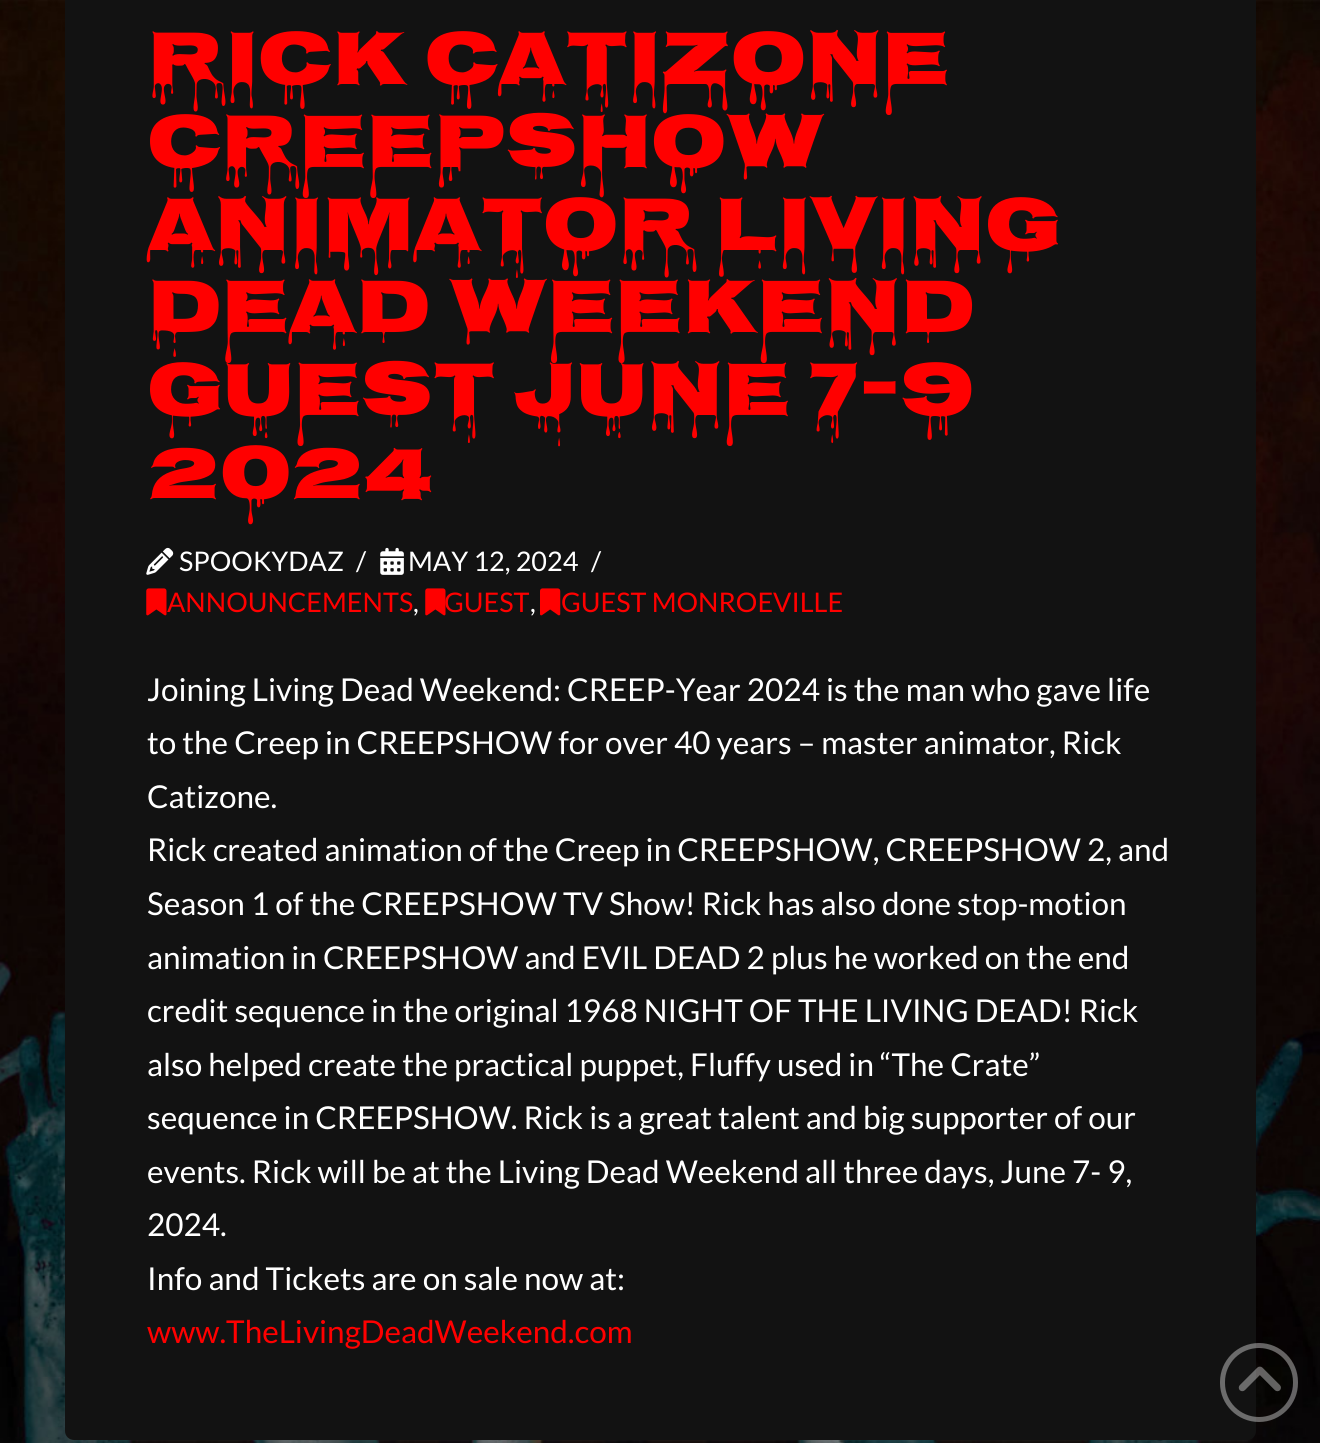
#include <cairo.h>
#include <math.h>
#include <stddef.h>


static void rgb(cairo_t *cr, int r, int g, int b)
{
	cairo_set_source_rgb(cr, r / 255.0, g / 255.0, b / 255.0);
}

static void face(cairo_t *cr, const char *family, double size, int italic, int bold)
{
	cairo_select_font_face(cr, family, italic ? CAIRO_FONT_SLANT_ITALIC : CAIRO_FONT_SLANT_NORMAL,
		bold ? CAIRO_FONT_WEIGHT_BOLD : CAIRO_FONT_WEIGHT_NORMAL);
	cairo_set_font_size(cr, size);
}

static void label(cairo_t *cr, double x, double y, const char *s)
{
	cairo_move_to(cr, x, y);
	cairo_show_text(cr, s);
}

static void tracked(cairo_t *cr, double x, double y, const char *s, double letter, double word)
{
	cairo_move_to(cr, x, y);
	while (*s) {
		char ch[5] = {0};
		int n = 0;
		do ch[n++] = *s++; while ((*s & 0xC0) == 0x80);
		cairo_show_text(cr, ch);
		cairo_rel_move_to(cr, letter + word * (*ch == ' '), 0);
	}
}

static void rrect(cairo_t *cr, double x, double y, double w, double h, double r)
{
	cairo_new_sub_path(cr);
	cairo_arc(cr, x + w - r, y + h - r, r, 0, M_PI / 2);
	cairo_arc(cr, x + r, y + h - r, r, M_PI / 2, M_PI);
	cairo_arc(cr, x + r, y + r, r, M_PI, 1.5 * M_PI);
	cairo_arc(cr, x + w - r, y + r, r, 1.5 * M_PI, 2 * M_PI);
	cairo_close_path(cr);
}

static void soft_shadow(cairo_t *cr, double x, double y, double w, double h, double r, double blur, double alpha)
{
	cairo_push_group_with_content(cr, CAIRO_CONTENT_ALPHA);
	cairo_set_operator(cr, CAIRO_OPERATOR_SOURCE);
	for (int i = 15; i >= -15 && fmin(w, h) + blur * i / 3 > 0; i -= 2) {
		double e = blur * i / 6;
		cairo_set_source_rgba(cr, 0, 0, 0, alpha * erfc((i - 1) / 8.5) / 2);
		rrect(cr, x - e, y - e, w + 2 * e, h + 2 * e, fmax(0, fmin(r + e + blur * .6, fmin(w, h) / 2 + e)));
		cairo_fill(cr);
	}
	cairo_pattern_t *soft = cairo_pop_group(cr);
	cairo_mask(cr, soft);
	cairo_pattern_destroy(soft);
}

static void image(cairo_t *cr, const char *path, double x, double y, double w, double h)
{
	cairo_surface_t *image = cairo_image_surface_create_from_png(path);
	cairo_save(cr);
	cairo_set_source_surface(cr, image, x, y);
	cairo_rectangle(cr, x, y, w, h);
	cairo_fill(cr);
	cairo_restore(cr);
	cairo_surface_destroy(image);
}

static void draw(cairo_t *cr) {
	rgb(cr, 255, 255, 255);
	cairo_paint(cr);
	image(cr, "image0.png", 0, 0, 1320, 1443);
	soft_shadow(cr, 70, -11, 1181, 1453, 5, 2, 0.07);
	rgb(cr, 18, 18, 18);
	cairo_new_path(cr);
	cairo_move_to(cr, 65, -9);
	cairo_line_to(cr, 1256, -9);
	cairo_line_to(cr, 1256, 1431);
	cairo_curve_to(cr, 1256, 1436, 1252, 1440, 1247, 1440);
	cairo_line_to(cr, 74, 1440);
	cairo_curve_to(cr, 69, 1440, 65, 1436, 65, 1431);
	cairo_close_path(cr);
	cairo_fill(cr);
	face(cr, "Nosifer", 78.75, 0, 0);
	rgb(cr, 255, 0, 0);
	tracked(cr, 147, 84, "Rick Catizone", -1.3, 0);
	tracked(cr, 147, 167, "Creepshow", -1.3, 0);
	tracked(cr, 147, 250, "Animator Living", -1.3, 0);
	tracked(cr, 147, 332, "Dead Weekend", -1.3, 0);
	tracked(cr, 147, 415, "Guest June 7-9", -1.3, 0);
	tracked(cr, 147, 498, "2024", -1.3, 0);
	image(cr, "image1.png", 146, 547, 28, 28);
	face(cr, "Lato", 27, 0, 0);
	rgb(cr, 255, 255, 255);
	label(cr, 179, 571, "SPOOKYDAZ");
	label(cr, 356, 571, "/");
	image(cr, "image2.png", 380, 547, 24, 28);
	label(cr, 408, 571, "MAY 12, 2024");
	label(cr, 591, 571, "/");
	image(cr, "image3.png", 146, 588, 21, 28);
	rgb(cr, 255, 0, 0);
	label(cr, 167, 612, "ANNOUNCEMENTS");
	rgb(cr, 255, 255, 255);
	label(cr, 413, 612, ",");
	image(cr, "image3.png", 425, 588, 21, 28);
	rgb(cr, 255, 0, 0);
	label(cr, 444, 612, "GUEST");
	rgb(cr, 255, 255, 255);
	label(cr, 530, 612, ",");
	image(cr, "image4.png", 540, 588, 21, 28);
	rgb(cr, 255, 0, 0);
	label(cr, 561, 612, "GUEST MONROEVILLE");
	face(cr, "Lato", 31.5, 0, 0);
	rgb(cr, 255, 255, 255);
	label(cr, 147, 701, "Joining Living Dead Weekend: CREEP-Year 2024 is the man who gave life");
	label(cr, 147, 754, "to the Creep in CREEPSHOW for over 40 years – master animator, Rick");
	label(cr, 147, 808, "Catizone.");
	label(cr, 147, 861, "Rick created animation of the Creep in CREEPSHOW, CREEPSHOW 2, and");
	label(cr, 147, 915, "Season 1 of the CREEPSHOW TV Show! Rick has also done stop-motion");
	label(cr, 147, 969, "animation in CREEPSHOW and EVIL DEAD 2 plus he worked on the end");
	label(cr, 147, 1022, "credit sequence in the original 1968 NIGHT OF THE LIVING DEAD! Rick");
	label(cr, 147, 1076, "also helped create the practical puppet, Fluffy used in “The Crate”");
	label(cr, 147, 1129, "sequence in CREEPSHOW. Rick is a great talent and big supporter of our");
	label(cr, 147, 1183, "events. Rick will be at the Living Dead Weekend all three days, June 7- 9,");
	label(cr, 147, 1236, "2024.");
	label(cr, 147, 1290, "Info and Tickets are on sale now at:");
	rgb(cr, 255, 0, 0);
	label(cr, 147, 1343, "www.TheLivingDeadWeekend.com");
	rrect(cr, 1222.5, 1345.5, 73, 74, 36.5);
	cairo_set_source_rgba(cr, 1, 1, 1, 0.38);
	cairo_set_line_width(cr, 5);
	cairo_stroke(cr);
	image(cr, "image5.png", 1238, 1366, 43, 26);
}

int main(void) {
	cairo_surface_t *surface = cairo_image_surface_create(CAIRO_FORMAT_RGB24, 1320, 1443);
	cairo_t *cr = cairo_create(surface);
	cairo_font_options_t *options = cairo_font_options_create();
	cairo_font_options_set_hint_metrics(options, CAIRO_HINT_METRICS_OFF);
	cairo_font_options_set_hint_style(options, CAIRO_HINT_STYLE_NONE);
	cairo_set_font_options(cr, options);
	cairo_set_miter_limit(cr, 4);
	draw(cr);
	cairo_surface_write_to_png(surface, "render.png");
	cairo_font_options_destroy(options);
	cairo_destroy(cr);
	cairo_surface_destroy(surface);
	return 0;
}
